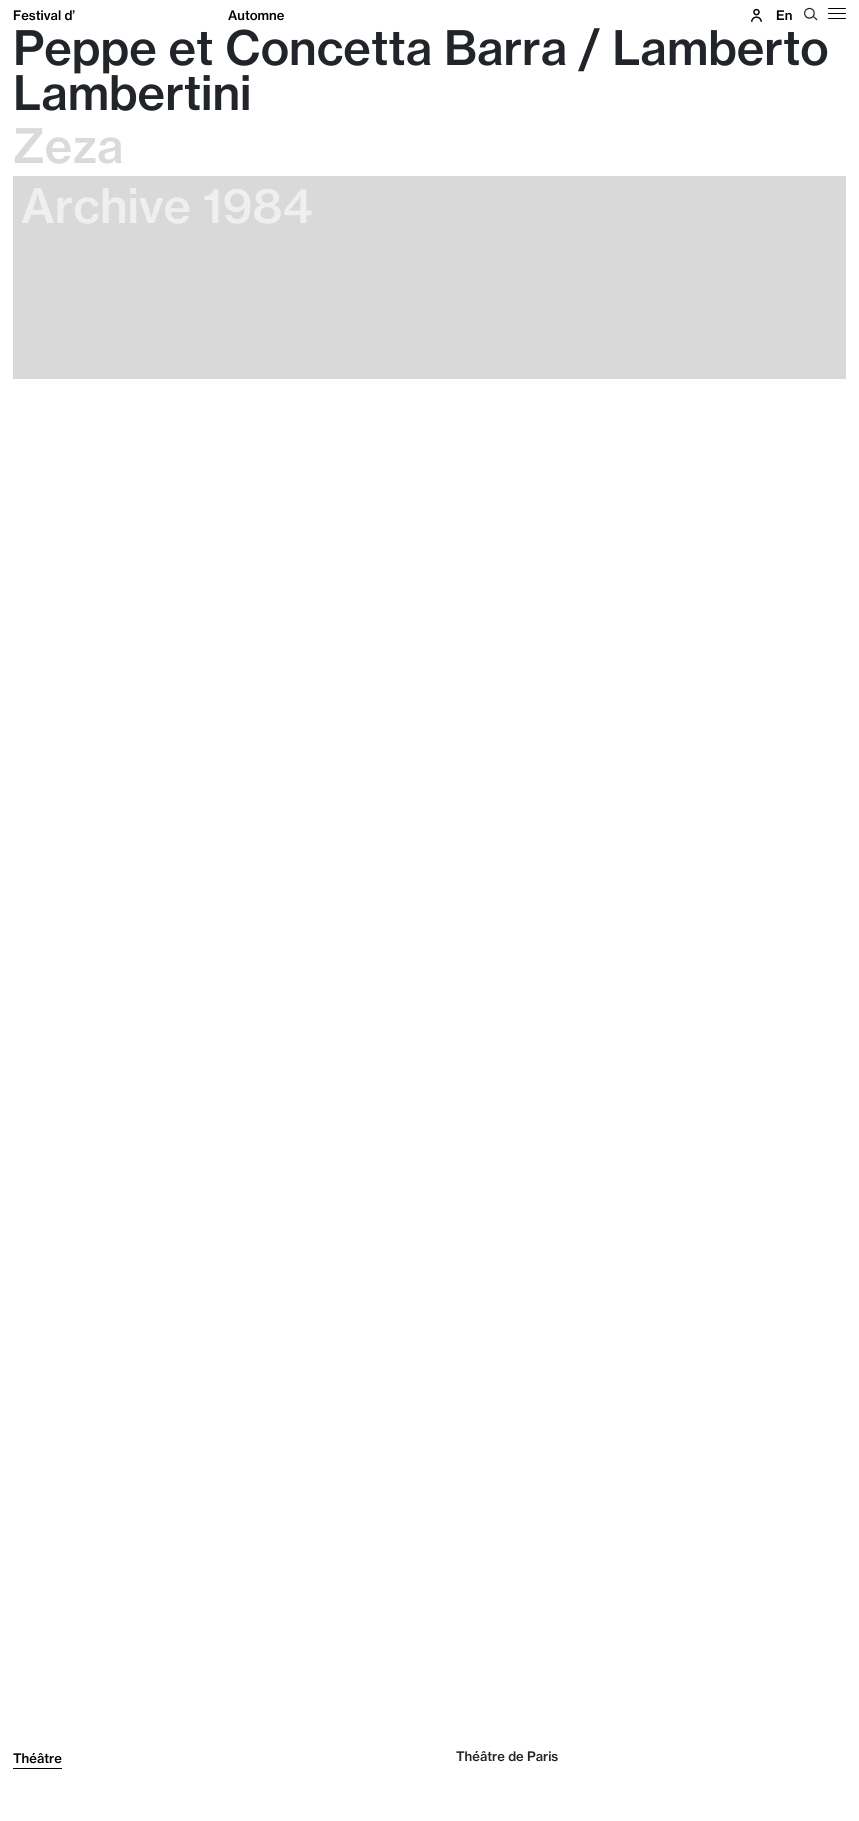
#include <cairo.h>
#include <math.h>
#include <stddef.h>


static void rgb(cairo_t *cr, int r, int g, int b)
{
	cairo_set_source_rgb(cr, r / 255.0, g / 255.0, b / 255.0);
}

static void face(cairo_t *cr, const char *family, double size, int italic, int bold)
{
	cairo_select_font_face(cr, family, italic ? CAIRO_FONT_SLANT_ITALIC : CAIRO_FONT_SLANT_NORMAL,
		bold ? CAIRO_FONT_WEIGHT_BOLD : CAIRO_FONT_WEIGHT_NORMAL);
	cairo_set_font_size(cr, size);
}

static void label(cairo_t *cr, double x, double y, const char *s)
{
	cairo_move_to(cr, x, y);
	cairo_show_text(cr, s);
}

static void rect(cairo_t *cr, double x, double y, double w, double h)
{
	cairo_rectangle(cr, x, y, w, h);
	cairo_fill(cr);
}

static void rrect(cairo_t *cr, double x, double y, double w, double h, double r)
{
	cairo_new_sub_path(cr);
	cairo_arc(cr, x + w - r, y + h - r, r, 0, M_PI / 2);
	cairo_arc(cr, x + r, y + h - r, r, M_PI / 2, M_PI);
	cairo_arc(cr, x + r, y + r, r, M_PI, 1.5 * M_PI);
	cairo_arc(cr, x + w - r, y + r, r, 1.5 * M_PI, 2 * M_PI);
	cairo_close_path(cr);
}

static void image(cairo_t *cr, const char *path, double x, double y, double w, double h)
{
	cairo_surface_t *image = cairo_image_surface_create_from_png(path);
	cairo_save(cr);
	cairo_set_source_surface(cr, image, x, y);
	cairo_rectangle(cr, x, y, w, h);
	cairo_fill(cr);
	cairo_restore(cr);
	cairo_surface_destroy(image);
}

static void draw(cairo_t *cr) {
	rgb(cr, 255, 255, 255);
	cairo_paint(cr);
	face(cr, "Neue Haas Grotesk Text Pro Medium", 13, 0, 0);
	rgb(cr, 0, 0, 0);
	label(cr, 13, 20, "Festival d’");
	label(cr, 228, 20, "Automne");
	image(cr, "image0.png", 751, 8, 11, 14);
	label(cr, 776, 20, "En");
	image(cr, "image1.png", 804, 7, 14, 14);
	rrect(cr, 828, 13, 18, 1, 0.5);
	cairo_fill(cr);
	rrect(cr, 828, 8, 18, 1, 0.5);
	cairo_fill(cr);
	rrect(cr, 828, 18, 18, 1, 0.5);
	cairo_fill(cr);
	face(cr, "Neue Haas Grotesk Text Pro Medium", 46.9, 0, 0);
	rgb(cr, 33, 37, 41);
	label(cr, 13, 65, "Peppe et Concetta Barra / Lamberto");
	label(cr, 13, 110, "Lambertini");
	rgb(cr, 218, 218, 218);
	label(cr, 13, 163, "Zeza");
	rgb(cr, 217, 217, 217);
	rect(cr, 13, 176, 833, 203);
	rgb(cr, 239, 239, 239);
	label(cr, 21, 223, "Archive 1984");
	rgb(cr, 0, 0, 0);
	rect(cr, 13, 1768, 49, 1);
	face(cr, "Neue Haas Grotesk Text Pro Medium", 13, 0, 0);
	label(cr, 13, 1763, "Théâtre");
	rgb(cr, 33, 37, 41);
	label(cr, 456, 1761, "Théâtre de Paris");
}

int main(void) {
	cairo_surface_t *surface = cairo_image_surface_create(CAIRO_FORMAT_RGB24, 859, 1821);
	cairo_t *cr = cairo_create(surface);
	cairo_font_options_t *options = cairo_font_options_create();
	cairo_font_options_set_hint_metrics(options, CAIRO_HINT_METRICS_OFF);
	cairo_font_options_set_hint_style(options, CAIRO_HINT_STYLE_NONE);
	cairo_set_font_options(cr, options);
	cairo_set_miter_limit(cr, 4);
	draw(cr);
	cairo_surface_write_to_png(surface, "render.png");
	cairo_font_options_destroy(options);
	cairo_destroy(cr);
	cairo_surface_destroy(surface);
	return 0;
}
